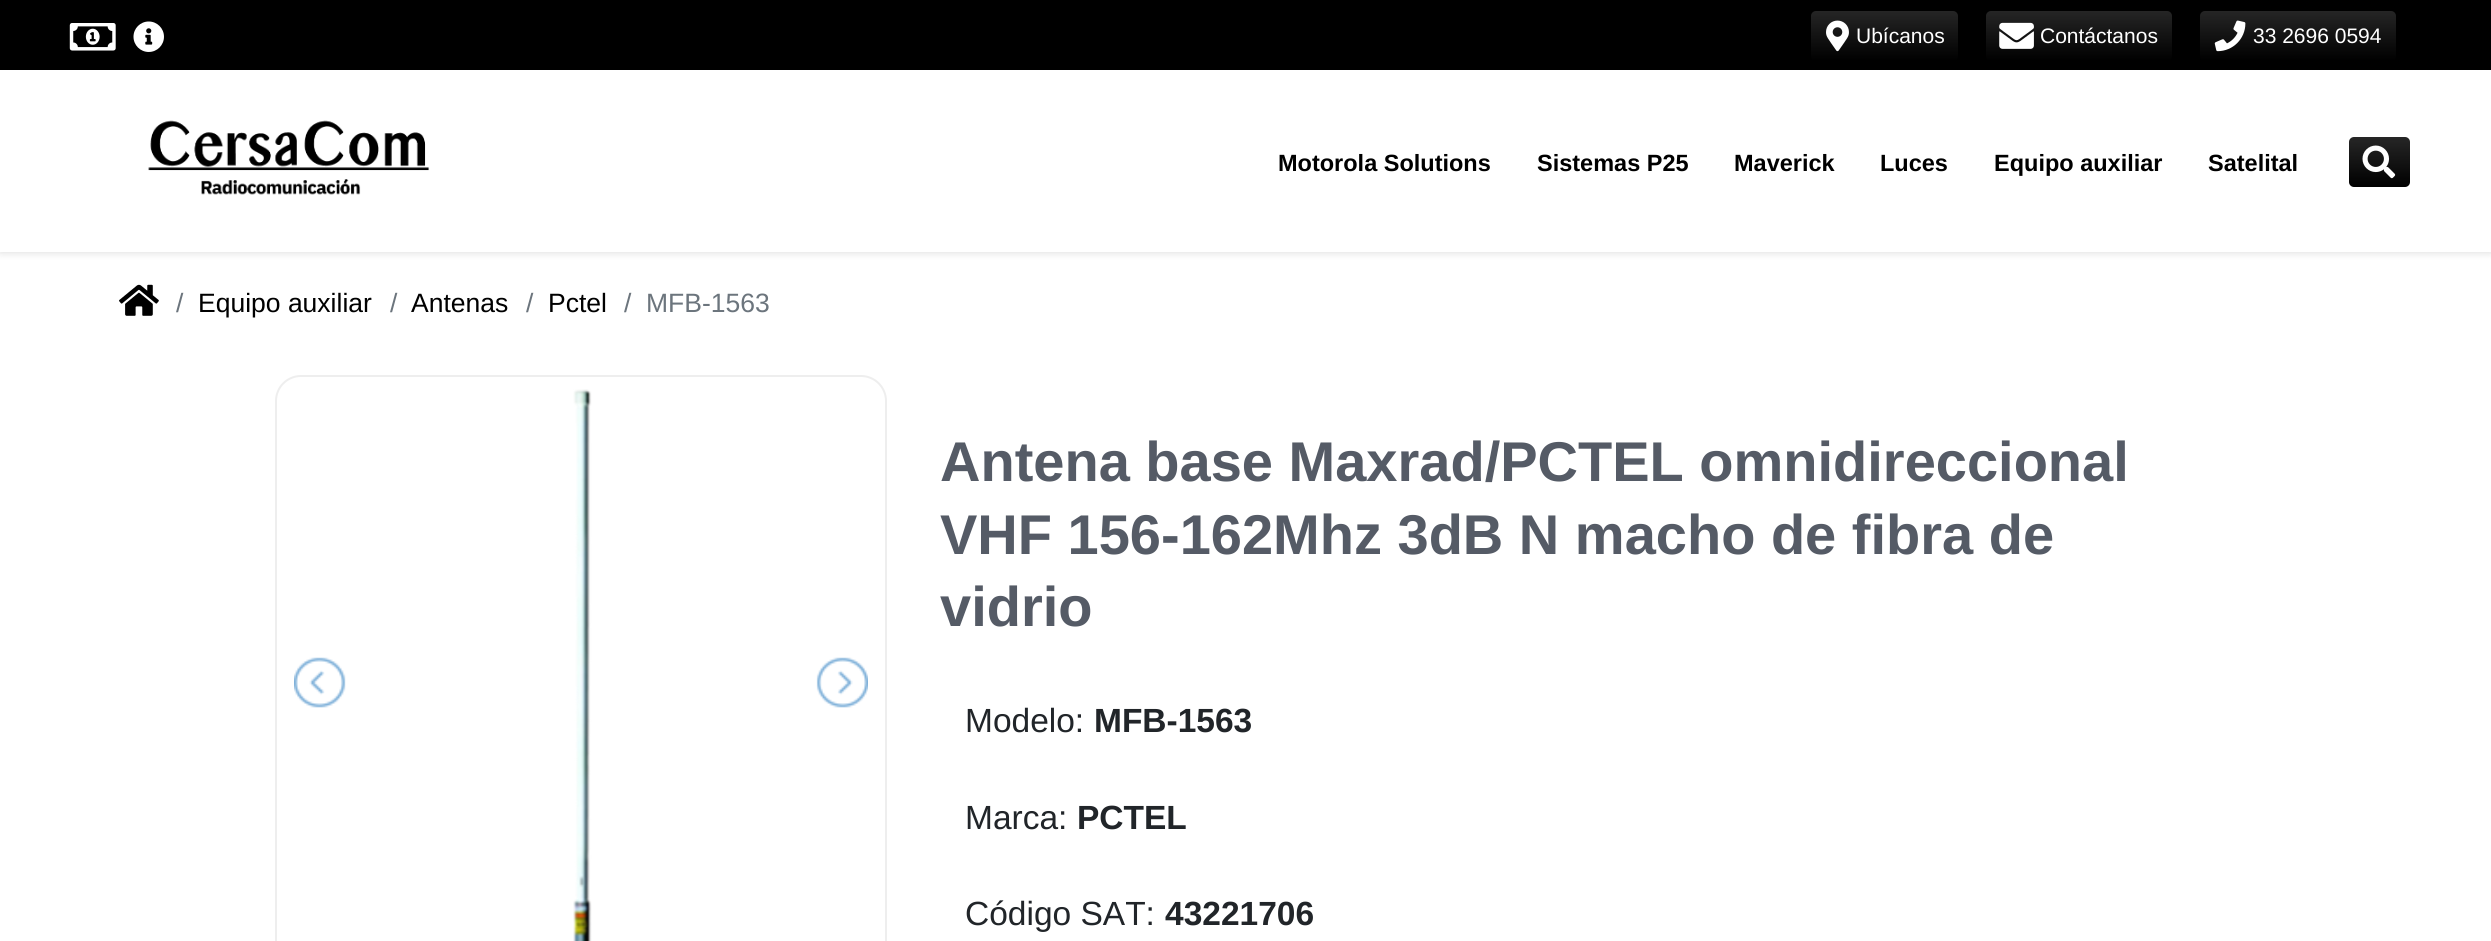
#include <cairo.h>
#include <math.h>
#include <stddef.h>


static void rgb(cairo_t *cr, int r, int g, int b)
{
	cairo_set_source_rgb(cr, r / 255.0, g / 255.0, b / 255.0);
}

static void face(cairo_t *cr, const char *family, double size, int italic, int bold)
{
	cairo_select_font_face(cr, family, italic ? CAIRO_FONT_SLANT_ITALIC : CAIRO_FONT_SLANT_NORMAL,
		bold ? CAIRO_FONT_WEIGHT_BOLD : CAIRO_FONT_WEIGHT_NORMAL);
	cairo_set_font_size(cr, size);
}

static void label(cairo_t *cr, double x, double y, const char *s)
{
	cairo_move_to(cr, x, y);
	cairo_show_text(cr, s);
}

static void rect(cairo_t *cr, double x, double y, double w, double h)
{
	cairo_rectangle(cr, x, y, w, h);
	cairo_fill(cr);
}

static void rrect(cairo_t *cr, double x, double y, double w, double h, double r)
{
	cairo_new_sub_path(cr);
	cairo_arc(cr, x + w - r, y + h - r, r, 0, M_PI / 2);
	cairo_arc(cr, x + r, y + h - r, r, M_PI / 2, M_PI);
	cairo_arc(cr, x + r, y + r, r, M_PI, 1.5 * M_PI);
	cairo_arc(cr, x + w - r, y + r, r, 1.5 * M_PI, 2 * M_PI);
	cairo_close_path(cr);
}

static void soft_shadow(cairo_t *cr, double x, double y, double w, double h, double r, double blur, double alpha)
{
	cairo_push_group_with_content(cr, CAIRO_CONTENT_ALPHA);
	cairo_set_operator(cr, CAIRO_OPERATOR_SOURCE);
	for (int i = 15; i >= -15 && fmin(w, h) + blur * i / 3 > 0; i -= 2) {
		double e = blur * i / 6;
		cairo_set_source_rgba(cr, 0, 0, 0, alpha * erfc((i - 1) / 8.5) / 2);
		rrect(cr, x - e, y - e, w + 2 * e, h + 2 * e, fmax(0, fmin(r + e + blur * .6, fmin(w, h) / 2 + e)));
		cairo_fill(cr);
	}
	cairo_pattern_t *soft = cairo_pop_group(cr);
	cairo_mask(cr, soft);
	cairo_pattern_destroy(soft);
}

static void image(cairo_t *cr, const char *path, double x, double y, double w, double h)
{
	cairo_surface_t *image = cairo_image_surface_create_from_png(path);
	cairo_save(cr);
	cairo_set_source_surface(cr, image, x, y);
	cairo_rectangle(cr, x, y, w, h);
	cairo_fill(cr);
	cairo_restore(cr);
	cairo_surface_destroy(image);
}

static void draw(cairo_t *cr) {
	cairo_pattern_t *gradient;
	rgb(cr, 255, 255, 255);
	cairo_paint(cr);
	rgb(cr, 0, 0, 0);
	rect(cr, 0, 0, 2491, 70);
	image(cr, "image0.png", 69, 23, 47, 28);
	image(cr, "image1.png", 133, 21, 31, 31);
	gradient = cairo_pattern_create_linear(1885, 10, 1885, 61);
	cairo_pattern_add_color_stop_rgba(gradient, 0, 0.149, 0.149, 0.149, 1);
	cairo_pattern_add_color_stop_rgba(gradient, 1, 0, 0, 0, 1);
	cairo_set_source(cr, gradient);
	cairo_pattern_destroy(gradient);
	rrect(cr, 1811, 11, 147, 50, 5);
	cairo_fill(cr);
	image(cr, "image2.png", 1826, 20, 23, 32);
	face(cr, "Arimo", 21, 0, 0);
	rgb(cr, 255, 255, 255);
	label(cr, 1856, 43, "Ubícanos");
	gradient = cairo_pattern_create_linear(2079, 10, 2079, 61);
	cairo_pattern_add_color_stop_rgba(gradient, 0, 0.149, 0.149, 0.149, 1);
	cairo_pattern_add_color_stop_rgba(gradient, 1, 0, 0, 0, 1);
	cairo_set_source(cr, gradient);
	cairo_pattern_destroy(gradient);
	rrect(cr, 1986, 11, 186, 50, 5);
	cairo_fill(cr);
	image(cr, "image3.png", 1999, 22, 35, 27);
	rgb(cr, 255, 255, 255);
	label(cr, 2040, 43, "Contáctanos");
	gradient = cairo_pattern_create_linear(2298, 10, 2298, 61);
	cairo_pattern_add_color_stop_rgba(gradient, 0, 0.149, 0.149, 0.149, 1);
	cairo_pattern_add_color_stop_rgba(gradient, 1, 0, 0, 0, 1);
	cairo_set_source(cr, gradient);
	cairo_pattern_destroy(gradient);
	rrect(cr, 2200, 11, 196, 50, 5);
	cairo_fill(cr);
	image(cr, "image4.png", 2214, 20, 32, 32);
	rgb(cr, 255, 255, 255);
	label(cr, 2253, 43, "33 2696 0594");
	cairo_save(cr);
	cairo_set_fill_rule(cr, CAIRO_FILL_RULE_EVEN_ODD);
	cairo_new_path(cr);
	cairo_move_to(cr, 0, 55);
	cairo_line_to(cr, 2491, 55);
	cairo_line_to(cr, 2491, 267);
	cairo_line_to(cr, 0, 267);
	cairo_close_path(cr);
	cairo_move_to(cr, 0, 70);
	cairo_line_to(cr, 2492, 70);
	cairo_line_to(cr, 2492, 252);
	cairo_line_to(cr, 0, 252);
	cairo_close_path(cr);
	cairo_clip(cr);
	rgb(cr, 0, 0, 0);
	soft_shadow(cr, 0, 70, 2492, 182, 0, 4.5, 0.15);
	cairo_restore(cr);
	image(cr, "image5.png", 148, 120, 282, 75);
	face(cr, "Liberation Sans", 23.5, 0, 1);
	rgb(cr, 0, 0, 0);
	label(cr, 1278, 171, "Motorola Solutions");
	label(cr, 1537, 171, "Sistemas P25");
	label(cr, 1734, 171, "Maverick");
	label(cr, 1880, 171, "Luces");
	label(cr, 1994, 171, "Equipo auxiliar");
	label(cr, 2208, 171, "Satelital");
	gradient = cairo_pattern_create_linear(2379, 137, 2379, 187);
	cairo_pattern_add_color_stop_rgba(gradient, 0, 0.149, 0.149, 0.149, 1);
	cairo_pattern_add_color_stop_rgba(gradient, 1, 0, 0, 0, 1);
	cairo_set_source(cr, gradient);
	cairo_pattern_destroy(gradient);
	rrect(cr, 2349, 137, 61, 50, 5);
	cairo_fill(cr);
	image(cr, "image6.png", 2362, 145, 34, 34);
	image(cr, "image7.png", 119, 284, 40, 32);
	face(cr, "Arimo", 26.5, 0, 0);
	rgb(cr, 108, 117, 125);
	label(cr, 176, 312, "/");
	rgb(cr, 0, 0, 0);
	label(cr, 198, 312, "Equipo auxiliar");
	rgb(cr, 108, 117, 125);
	label(cr, 390, 312, "/");
	rgb(cr, 0, 0, 0);
	label(cr, 411, 312, "Antenas");
	rgb(cr, 108, 117, 125);
	label(cr, 526, 312, "/");
	rgb(cr, 0, 0, 0);
	label(cr, 548, 312, "Pctel");
	rgb(cr, 108, 117, 125);
	label(cr, 624, 312, "/");
	label(cr, 646, 312, "MFB-1563");
	rrect(cr, 276, 376, 610, 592, 25);
	rgb(cr, 238, 238, 238);
	cairo_stroke(cr);
	image(cr, "image8.png", 573, 389, 19, 552);
	image(cr, "image9.png", 294, 657, 52, 51);
	image(cr, "image10.png", 816, 657, 52, 51);
	face(cr, "Arimo", 56, 0, 1);
	rgb(cr, 85, 91, 102);
	label(cr, 940, 481, "Antena base Maxrad/PCTEL omnidireccional");
	label(cr, 940, 554, "VHF 156-162Mhz 3dB N macho de fibra de");
	label(cr, 940, 626, "vidrio");
	face(cr, "Arimo", 33.5, 0, 0);
	rgb(cr, 33, 37, 41);
	label(cr, 965, 732, "Modelo:");
	face(cr, "Arimo", 33.5, 0, 1);
	label(cr, 1094, 732, "MFB-1563");
	face(cr, "Arimo", 33.5, 0, 0);
	label(cr, 965, 829, "Marca:");
	face(cr, "Arimo", 33.5, 0, 1);
	label(cr, 1077, 829, "PCTEL");
	face(cr, "Arimo", 33.5, 0, 0);
	label(cr, 965, 925, "Código SAT:");
	face(cr, "Arimo", 33.5, 0, 1);
	label(cr, 1165, 925, "43221706");
}

int main(void) {
	cairo_surface_t *surface = cairo_image_surface_create(CAIRO_FORMAT_RGB24, 2491, 941);
	cairo_t *cr = cairo_create(surface);
	cairo_font_options_t *options = cairo_font_options_create();
	cairo_font_options_set_hint_metrics(options, CAIRO_HINT_METRICS_OFF);
	cairo_font_options_set_hint_style(options, CAIRO_HINT_STYLE_NONE);
	cairo_set_font_options(cr, options);
	cairo_set_miter_limit(cr, 4);
	draw(cr);
	cairo_surface_write_to_png(surface, "render.png");
	cairo_font_options_destroy(options);
	cairo_destroy(cr);
	cairo_surface_destroy(surface);
	return 0;
}
